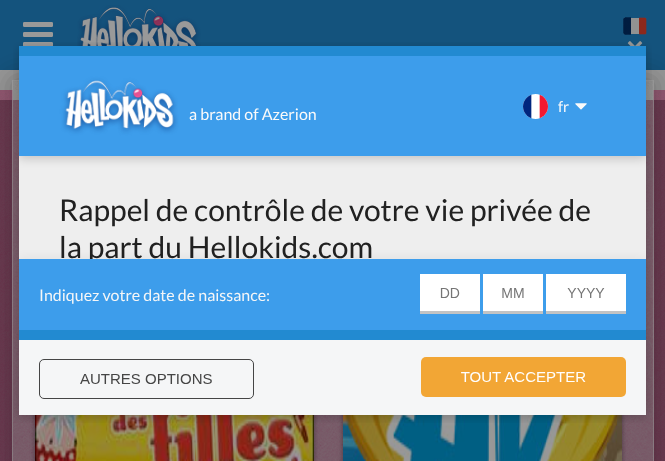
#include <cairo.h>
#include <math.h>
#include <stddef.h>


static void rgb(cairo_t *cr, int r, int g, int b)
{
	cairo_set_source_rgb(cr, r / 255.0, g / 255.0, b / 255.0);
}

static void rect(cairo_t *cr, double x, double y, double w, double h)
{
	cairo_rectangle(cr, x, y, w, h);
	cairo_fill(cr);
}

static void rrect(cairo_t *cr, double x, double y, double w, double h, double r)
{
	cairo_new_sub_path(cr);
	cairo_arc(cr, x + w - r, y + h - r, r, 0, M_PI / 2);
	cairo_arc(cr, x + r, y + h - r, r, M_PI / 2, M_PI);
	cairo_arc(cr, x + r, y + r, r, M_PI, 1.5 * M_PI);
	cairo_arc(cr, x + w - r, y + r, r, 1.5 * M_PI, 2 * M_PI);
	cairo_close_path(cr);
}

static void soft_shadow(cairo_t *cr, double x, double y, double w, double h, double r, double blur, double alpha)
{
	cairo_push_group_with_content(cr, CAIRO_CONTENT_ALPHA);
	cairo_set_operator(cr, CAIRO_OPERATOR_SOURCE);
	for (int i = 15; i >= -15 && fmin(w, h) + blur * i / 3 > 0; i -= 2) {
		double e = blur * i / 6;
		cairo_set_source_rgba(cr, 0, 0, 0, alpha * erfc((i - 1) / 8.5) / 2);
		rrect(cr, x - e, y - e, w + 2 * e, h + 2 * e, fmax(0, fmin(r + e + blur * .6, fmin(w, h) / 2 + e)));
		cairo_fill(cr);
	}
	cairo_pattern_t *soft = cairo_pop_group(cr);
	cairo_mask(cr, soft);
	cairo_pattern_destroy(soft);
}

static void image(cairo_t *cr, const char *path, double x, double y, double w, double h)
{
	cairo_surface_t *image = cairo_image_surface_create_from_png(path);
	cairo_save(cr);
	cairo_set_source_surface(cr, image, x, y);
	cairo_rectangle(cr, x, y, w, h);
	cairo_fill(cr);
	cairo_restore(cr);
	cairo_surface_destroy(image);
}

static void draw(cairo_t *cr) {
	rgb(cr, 153, 153, 153);
	cairo_paint(cr);
	rgb(cr, 20, 83, 125);
	rect(cr, 0, 0, 665, 70);
	image(cr, "image0.png", 23, 22, 30, 24);
	image(cr, "image1.png", 77, 5, 124, 41);
	rgb(cr, 145, 145, 145);
	rect(cr, 13, 80, 640, 10);
	image(cr, "image5.png", 13, 80, 640, 10);
	rgb(cr, 151, 89, 116);
	rect(cr, 0, 90, 665, 10);
	image(cr, "image6.png", 0, 90, 665, 10);
	rgb(cr, 145, 145, 145);
	rect(cr, 13, 90, 640, 10);
	rgb(cr, 109, 56, 80);
	rect(cr, 0, 100, 665, 361);
	image(cr, "image7.png", 0, 100, 665, 361);
	cairo_save(cr);
	cairo_set_fill_rule(cr, CAIRO_FILL_RULE_EVEN_ODD);
	cairo_new_path(cr);
	cairo_move_to(cr, 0, 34);
	cairo_line_to(cr, 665, 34);
	cairo_line_to(cr, 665, 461);
	cairo_line_to(cr, 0, 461);
	cairo_close_path(cr);
	cairo_move_to(cr, 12, 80);
	cairo_line_to(cr, 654, 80);
	cairo_line_to(cr, 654, 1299);
	cairo_line_to(cr, 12, 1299);
	cairo_close_path(cr);
	cairo_clip(cr);
	rgb(cr, 0, 0, 0);
	soft_shadow(cr, 12, 80, 642, 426, 0, 15, 0.3);
	cairo_restore(cr);
	image(cr, "image2.png", 623, 17, 24, 18);
	image(cr, "image3.png", 627, 41, 16, 5);
	image(cr, "image4.png", 12, 80, 642, 381);
	cairo_rectangle(cr, 12.5, 80.5, 641, 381);
	cairo_set_source_rgba(cr, 0.6, 0.6, 0.6, 0.5);
	cairo_set_line_width(cr, 1);
	cairo_stroke(cr);
	rgb(cr, 0, 0, 0);
	soft_shadow(cr, 35, 193, 279, 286, 10, 2.5, 0.4);
	image(cr, "image8.png", 35, 415, 279, 46);
	soft_shadow(cr, 343, 193, 279, 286, 10, 2.5, 0.4);
	image(cr, "image9.png", 343, 415, 279, 46);
	image(cr, "image10.png", 13, 42, 639, 381);
}

int main(void) {
	cairo_surface_t *surface = cairo_image_surface_create(CAIRO_FORMAT_RGB24, 665, 461);
	cairo_t *cr = cairo_create(surface);
	cairo_font_options_t *options = cairo_font_options_create();
	cairo_font_options_set_hint_metrics(options, CAIRO_HINT_METRICS_OFF);
	cairo_font_options_set_hint_style(options, CAIRO_HINT_STYLE_NONE);
	cairo_set_font_options(cr, options);
	cairo_set_miter_limit(cr, 4);
	draw(cr);
	cairo_surface_write_to_png(surface, "render.png");
	cairo_font_options_destroy(options);
	cairo_destroy(cr);
	cairo_surface_destroy(surface);
	return 0;
}
